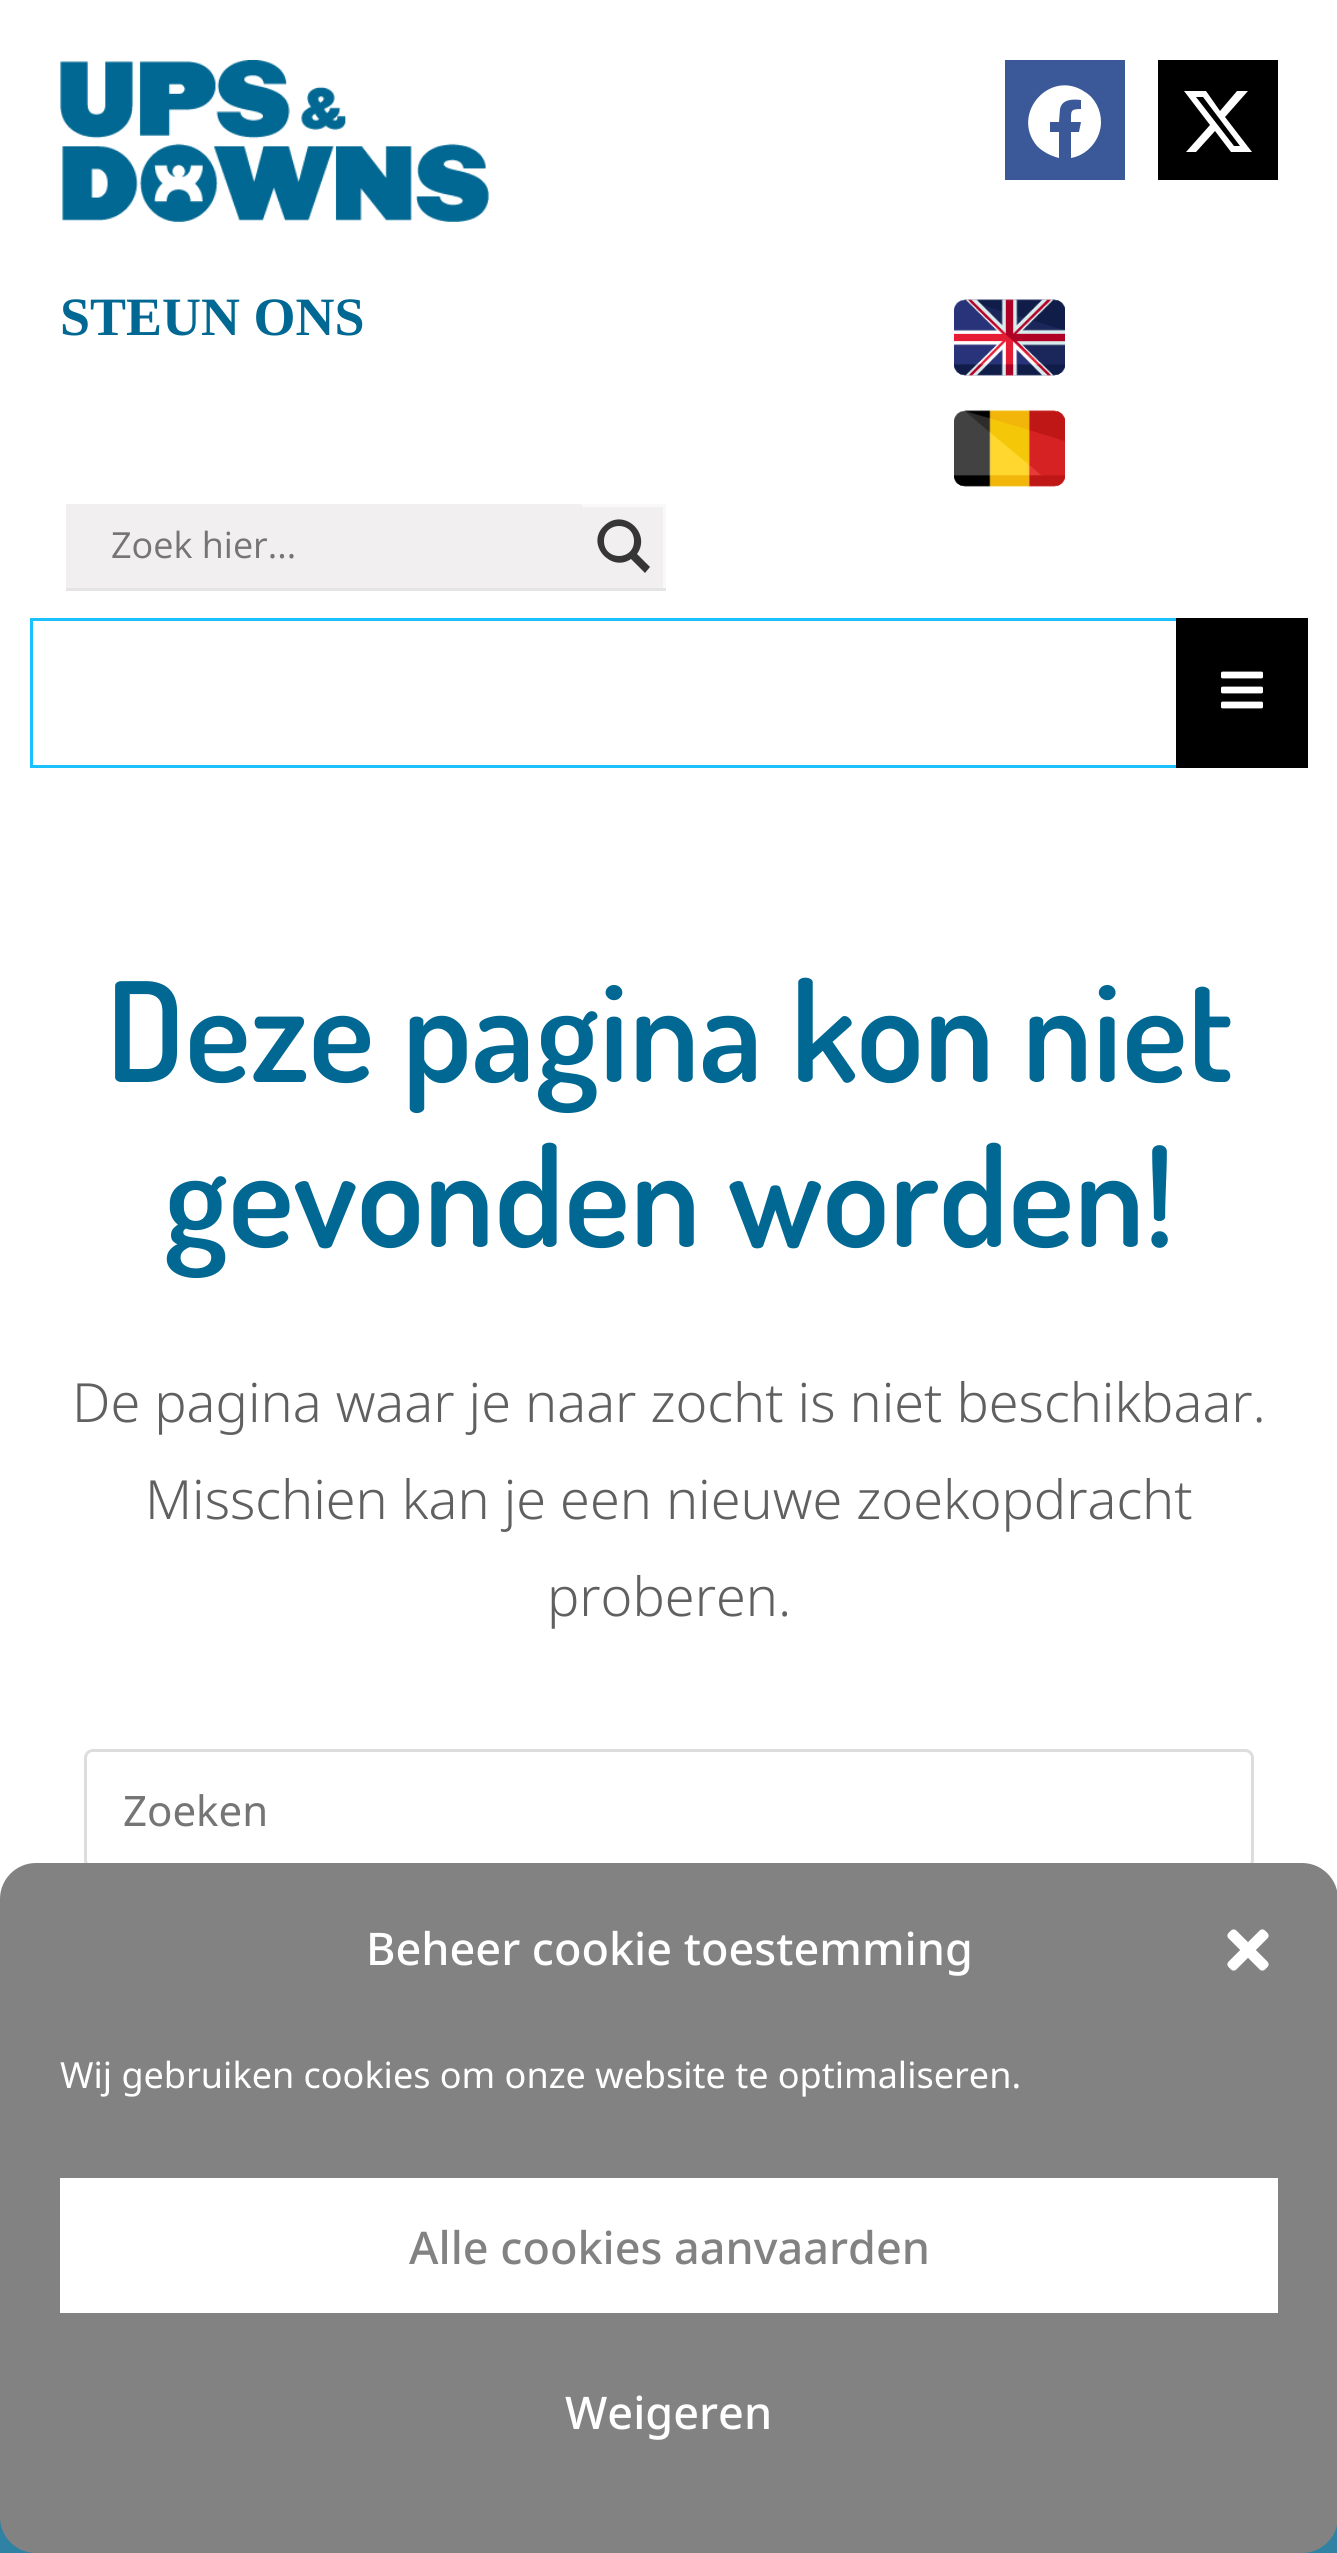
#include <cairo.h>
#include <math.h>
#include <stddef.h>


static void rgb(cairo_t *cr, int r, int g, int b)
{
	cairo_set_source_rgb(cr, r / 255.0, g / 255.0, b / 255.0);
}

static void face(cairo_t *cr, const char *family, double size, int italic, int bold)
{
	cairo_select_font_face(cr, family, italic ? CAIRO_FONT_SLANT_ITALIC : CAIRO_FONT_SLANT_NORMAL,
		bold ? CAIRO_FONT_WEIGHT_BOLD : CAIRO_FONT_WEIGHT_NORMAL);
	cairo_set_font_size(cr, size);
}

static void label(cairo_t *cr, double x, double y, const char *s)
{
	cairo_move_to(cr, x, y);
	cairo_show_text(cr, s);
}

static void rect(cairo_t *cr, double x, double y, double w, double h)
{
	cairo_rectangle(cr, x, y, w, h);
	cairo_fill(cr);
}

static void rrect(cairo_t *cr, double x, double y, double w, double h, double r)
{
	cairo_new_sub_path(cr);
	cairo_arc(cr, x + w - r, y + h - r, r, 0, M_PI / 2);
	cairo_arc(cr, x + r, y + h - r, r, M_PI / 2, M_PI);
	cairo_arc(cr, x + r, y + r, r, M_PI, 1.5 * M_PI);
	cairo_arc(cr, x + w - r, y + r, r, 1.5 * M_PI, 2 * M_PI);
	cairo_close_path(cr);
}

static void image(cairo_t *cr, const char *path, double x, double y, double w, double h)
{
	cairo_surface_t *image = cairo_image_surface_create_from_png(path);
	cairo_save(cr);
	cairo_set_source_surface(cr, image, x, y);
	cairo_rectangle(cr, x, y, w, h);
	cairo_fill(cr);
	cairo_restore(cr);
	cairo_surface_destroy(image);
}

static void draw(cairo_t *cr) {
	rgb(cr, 255, 255, 255);
	cairo_paint(cr);
	image(cr, "image0.png", 60, 60, 429, 162);
	rgb(cr, 59, 89, 152);
	rect(cr, 1005, 60, 120, 120);
	rgb(cr, 255, 255, 255);
	cairo_new_path(cr);
	cairo_move_to(cr, 1101, 122);
	cairo_curve_to(cr, 1101, 139, 1088, 155, 1071, 158);
	cairo_line_to(cr, 1071, 132);
	cairo_line_to(cr, 1079, 132);
	cairo_line_to(cr, 1081, 122);
	cairo_line_to(cr, 1071, 122);
	cairo_curve_to(cr, 1071, 111, 1070, 109, 1081, 109);
	cairo_line_to(cr, 1081, 100);
	cairo_curve_to(cr, 1073, 99, 1062, 99, 1060, 109);
	cairo_line_to(cr, 1059, 122);
	cairo_line_to(cr, 1050, 122);
	cairo_line_to(cr, 1050, 132);
	cairo_line_to(cr, 1059, 132);
	cairo_line_to(cr, 1059, 158);
	cairo_curve_to(cr, 1051, 156, 1043, 152, 1037, 146);
	cairo_curve_to(cr, 1010, 114, 1050, 68, 1085, 92);
	cairo_curve_to(cr, 1095, 98, 1101, 110, 1101, 122);
	cairo_close_path(cr);
	cairo_fill(cr);
	rgb(cr, 0, 0, 0);
	rect(cr, 1158, 60, 120, 120);
	rgb(cr, 255, 255, 255);
	cairo_new_path(cr);
	cairo_move_to(cr, 1237, 91);
	cairo_line_to(cr, 1248, 91);
	cairo_line_to(cr, 1225, 117);
	cairo_line_to(cr, 1252, 152);
	cairo_line_to(cr, 1231, 152);
	cairo_line_to(cr, 1215, 131);
	cairo_line_to(cr, 1196, 152);
	cairo_line_to(cr, 1186, 152);
	cairo_line_to(cr, 1210, 125);
	cairo_line_to(cr, 1184, 91);
	cairo_line_to(cr, 1206, 91);
	cairo_line_to(cr, 1220, 111);
	cairo_close_path(cr);
	cairo_move_to(cr, 1234, 146);
	cairo_line_to(cr, 1240, 146);
	cairo_line_to(cr, 1203, 97);
	cairo_line_to(cr, 1196, 97);
	cairo_close_path(cr);
	cairo_fill(cr);
	face(cr, "Liberation Serif", 54, 0, 1);
	rgb(cr, 0, 104, 146);
	label(cr, 60, 335, "STEUN ONS");
	image(cr, "image1.png", 954, 299, 111, 77);
	image(cr, "image2.png", 954, 410, 111, 77);
	rgb(cr, 228, 228, 228);
	rect(cr, 66, 588, 600, 3);
	rgb(cr, 241, 239, 239);
	rect(cr, 66, 504, 597, 84);
	face(cr, "Open Sans", 36, 0, 0);
	rgb(cr, 117, 117, 117);
	label(cr, 111, 558, "Zoek hier...");
	cairo_save(cr);
	cairo_rectangle(cr, 582, 504, 84, 84);
	cairo_clip(cr);
	rgb(cr, 250, 249, 249);
	cairo_set_fill_rule(cr, CAIRO_FILL_RULE_EVEN_ODD);
	cairo_new_path(cr);
	cairo_move_to(cr, 285, 207);
	cairo_line_to(cr, 963, 207);
	cairo_line_to(cr, 963, 885);
	cairo_line_to(cr, 285, 885);
	cairo_close_path(cr);
	cairo_move_to(cr, 579, 507);
	cairo_line_to(cr, 663, 507);
	cairo_line_to(cr, 663, 591);
	cairo_line_to(cr, 579, 591);
	cairo_close_path(cr);
	cairo_fill(cr);
	cairo_restore(cr);
	rgb(cr, 54, 54, 54);
	cairo_new_path(cr);
	cairo_move_to(cr, 650, 567);
	cairo_line_to(cr, 637, 554);
	cairo_curve_to(cr, 652, 533, 623, 507, 604, 526);
	cairo_curve_to(cr, 585, 544, 611, 573, 631, 559);
	cairo_line_to(cr, 645, 573);
	cairo_close_path(cr);
	cairo_move_to(cr, 604, 541);
	cairo_curve_to(cr, 604, 521, 634, 521, 634, 541);
	cairo_curve_to(cr, 634, 561, 604, 561, 604, 541);
	cairo_close_path(cr);
	cairo_fill(cr);
	cairo_rectangle(cr, 31.5, 619.5, 1275, 147);
	rgb(cr, 27, 193, 255);
	cairo_set_line_width(cr, 3);
	cairo_stroke(cr);
	rgb(cr, 0, 0, 0);
	rect(cr, 1176, 618, 132, 150);
	image(cr, "image3.png", 1221, 671, 42, 38);
	face(cr, "Dosis SemiBold", 138, 0, 0);
	rgb(cr, 0, 104, 146);
	label(cr, 106, 1082, "Deze pagina kon niet");
	label(cr, 164, 1247, "gevonden worden!");
	face(cr, "Noto Sans Light", 54, 0, 0);
	rgb(cr, 96, 96, 96);
	label(cr, 72, 1422, "De pagina waar je naar zocht is niet beschikbaar.");
	label(cr, 145, 1519, "Misschien kan je een nieuwe zoekopdracht");
	label(cr, 547, 1616, "proberen.");
	rrect(cr, 85.5, 1750.5, 1167, 117, 7.5);
	rgb(cr, 221, 221, 221);
	cairo_stroke(cr);
	face(cr, "Noto Sans", 42, 0, 0);
	rgb(cr, 117, 117, 117);
	label(cr, 123, 1826, "Zoeken");
	rgb(cr, 47, 130, 164);
	rect(cr, 0, 2517, 1337, 36);
	rgb(cr, 130, 130, 130);
	rrect(cr, 0, 1863, 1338, 690, 36);
	cairo_fill(cr);
	face(cr, "Noto Sans Medium", 45, 0, 0);
	rgb(cr, 255, 255, 255);
	label(cr, 366, 1965, "Beheer cookie toestemming");
	image(cr, "image4.png", 1227, 1929, 42, 42);
	face(cr, "Noto Sans", 36, 0, 0);
	label(cr, 60, 2088, "Wij gebruiken cookies om onze website te optimaliseren.");
	rect(cr, 60, 2178, 1218, 135);
	face(cr, "Noto Sans Medium", 45, 0, 0);
	rgb(cr, 130, 130, 130);
	label(cr, 409, 2264, "Alle cookies aanvaarden");
	rgb(cr, 255, 255, 255);
	label(cr, 565, 2429, "Weigeren");
}

int main(void) {
	cairo_surface_t *surface = cairo_image_surface_create(CAIRO_FORMAT_RGB24, 1337, 2553);
	cairo_t *cr = cairo_create(surface);
	cairo_font_options_t *options = cairo_font_options_create();
	cairo_font_options_set_hint_metrics(options, CAIRO_HINT_METRICS_OFF);
	cairo_font_options_set_hint_style(options, CAIRO_HINT_STYLE_NONE);
	cairo_set_font_options(cr, options);
	cairo_set_miter_limit(cr, 4);
	draw(cr);
	cairo_surface_write_to_png(surface, "render.png");
	cairo_font_options_destroy(options);
	cairo_destroy(cr);
	cairo_surface_destroy(surface);
	return 0;
}
